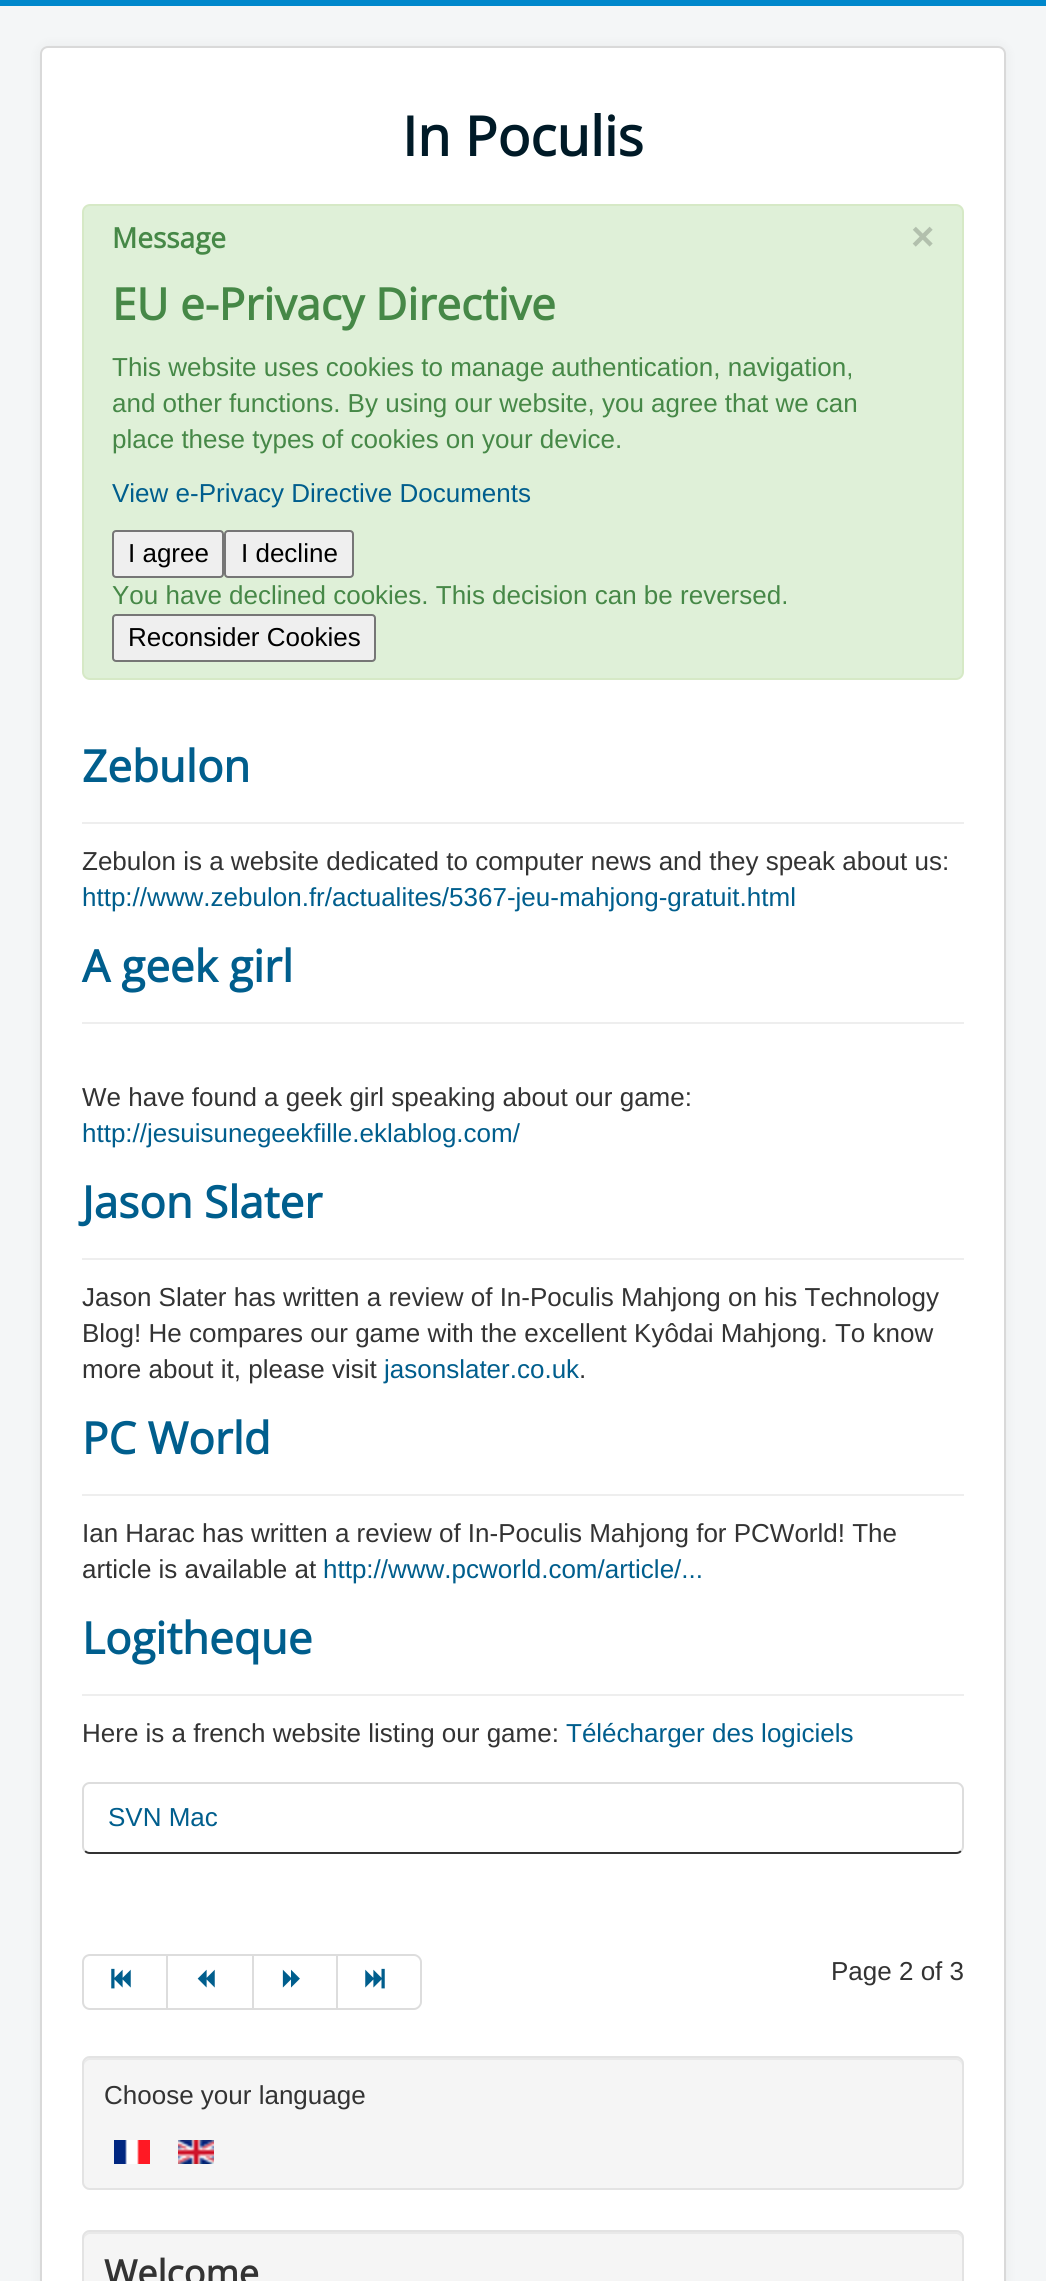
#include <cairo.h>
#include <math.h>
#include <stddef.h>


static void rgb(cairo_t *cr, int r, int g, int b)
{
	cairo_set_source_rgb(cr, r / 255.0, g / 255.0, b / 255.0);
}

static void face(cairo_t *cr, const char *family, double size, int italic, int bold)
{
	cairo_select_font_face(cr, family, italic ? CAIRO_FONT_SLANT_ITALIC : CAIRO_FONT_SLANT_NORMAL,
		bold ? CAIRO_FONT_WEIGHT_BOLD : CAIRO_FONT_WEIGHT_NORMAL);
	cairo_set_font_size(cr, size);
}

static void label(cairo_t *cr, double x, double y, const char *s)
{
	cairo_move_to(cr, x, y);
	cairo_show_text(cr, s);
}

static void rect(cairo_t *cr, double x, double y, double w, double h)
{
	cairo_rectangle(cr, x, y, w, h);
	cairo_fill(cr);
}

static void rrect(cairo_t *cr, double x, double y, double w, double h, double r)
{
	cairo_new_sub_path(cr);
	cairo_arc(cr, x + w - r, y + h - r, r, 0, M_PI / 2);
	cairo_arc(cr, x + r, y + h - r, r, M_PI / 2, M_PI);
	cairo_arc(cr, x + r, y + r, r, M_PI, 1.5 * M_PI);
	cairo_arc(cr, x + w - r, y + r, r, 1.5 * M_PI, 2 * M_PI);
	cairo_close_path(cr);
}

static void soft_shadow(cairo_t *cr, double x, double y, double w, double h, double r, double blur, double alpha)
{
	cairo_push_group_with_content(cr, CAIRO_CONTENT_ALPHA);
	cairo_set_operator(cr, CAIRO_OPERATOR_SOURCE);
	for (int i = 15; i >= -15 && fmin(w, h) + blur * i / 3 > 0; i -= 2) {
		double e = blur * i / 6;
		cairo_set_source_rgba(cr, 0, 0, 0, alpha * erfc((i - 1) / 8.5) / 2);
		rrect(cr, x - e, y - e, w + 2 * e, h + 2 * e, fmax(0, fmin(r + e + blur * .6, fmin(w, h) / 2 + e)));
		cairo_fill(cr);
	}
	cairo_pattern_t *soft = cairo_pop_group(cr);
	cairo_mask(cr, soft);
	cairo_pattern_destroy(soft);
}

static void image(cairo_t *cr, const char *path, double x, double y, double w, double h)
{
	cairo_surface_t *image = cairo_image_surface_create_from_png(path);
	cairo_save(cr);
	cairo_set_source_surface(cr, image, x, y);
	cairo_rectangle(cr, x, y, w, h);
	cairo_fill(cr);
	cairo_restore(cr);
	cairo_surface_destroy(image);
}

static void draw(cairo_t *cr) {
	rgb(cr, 244, 246, 247);
	cairo_paint(cr);
	rgb(cr, 0, 136, 204);
	rect(cr, 0, 0, 1046, 6);
	rgb(cr, 0, 0, 0);
	soft_shadow(cr, 40, 46, 966, 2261, 8, 6, 0.05);
	rgb(cr, 255, 255, 255);
	rrect(cr, 40, 46, 966, 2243, 8);
	cairo_fill(cr);
	rrect(cr, 41, 47, 964, 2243, 7);
	cairo_set_source_rgba(cr, 0, 0, 0, 0.15);
	cairo_stroke(cr);
	face(cr, "Open Sans", 54.5, 0, 1);
	rgb(cr, 0, 26, 39);
	label(cr, 402, 156, "In Poculis");
	rgb(cr, 223, 240, 216);
	rrect(cr, 83, 205, 880, 474, 7);
	cairo_fill_preserve(cr);
	rgb(cr, 214, 233, 198);
	cairo_stroke(cr);
	face(cr, "Open Sans", 28, 0, 1);
	rgb(cr, 70, 136, 71);
	label(cr, 112, 248, "Message");
	face(cr, "Liberation Sans", 40, 0, 1);
	rgb(cr, 178, 192, 173);
	label(cr, 911, 250, "×");
	face(cr, "Open Sans", 44, 0, 1);
	rgb(cr, 70, 136, 71);
	label(cr, 112, 320, "EU e-Privacy Directive");
	face(cr, "Liberation Sans", 26, 0, 0);
	label(cr, 112, 376, "This website uses cookies to manage authentication, navigation,");
	label(cr, 112, 412, "and other functions. By using our website, you agree that we can");
	label(cr, 112, 448, "place these types of cookies on your device.");
	rgb(cr, 0, 94, 141);
	label(cr, 112, 502, "View e-Privacy Directive Documents");
	rgb(cr, 239, 239, 239);
	rrect(cr, 113, 531, 110, 46, 3);
	cairo_fill_preserve(cr);
	rgb(cr, 118, 118, 118);
	cairo_stroke(cr);
	rgb(cr, 0, 0, 0);
	label(cr, 128, 562, "I agree");
	rgb(cr, 239, 239, 239);
	rrect(cr, 225, 531, 128, 46, 3);
	cairo_fill_preserve(cr);
	rgb(cr, 118, 118, 118);
	cairo_stroke(cr);
	rgb(cr, 0, 0, 0);
	label(cr, 241, 562, "I decline");
	rgb(cr, 70, 136, 71);
	label(cr, 112, 604, "You have declined cookies. This decision can be reversed.");
	rgb(cr, 239, 239, 239);
	rrect(cr, 113, 615, 262, 46, 3);
	cairo_fill_preserve(cr);
	rgb(cr, 118, 118, 118);
	cairo_stroke(cr);
	rgb(cr, 0, 0, 0);
	label(cr, 128, 646, "Reconsider Cookies");
	rgb(cr, 238, 238, 238);
	rect(cr, 82, 822, 882, 2);
	face(cr, "Open Sans", 44, 0, 1);
	rgb(cr, 0, 94, 141);
	label(cr, 82, 782, "Zebulon");
	face(cr, "Liberation Sans", 26, 0, 0);
	rgb(cr, 51, 51, 51);
	label(cr, 82, 870, "Zebulon is a website dedicated to computer news and they speak about us:");
	rgb(cr, 0, 94, 141);
	label(cr, 82, 906, "http://www.zebulon.fr/actualites/5367-jeu-mahjong-gratuit.html");
	rgb(cr, 238, 238, 238);
	rect(cr, 82, 1022, 882, 2);
	face(cr, "Open Sans", 44, 0, 1);
	rgb(cr, 0, 94, 141);
	label(cr, 82, 982, "A geek girl");
	face(cr, "Liberation Sans", 26, 0, 0);
	rgb(cr, 51, 51, 51);
	label(cr, 82, 1106, "We have found a geek girl speaking about our game:");
	rgb(cr, 0, 94, 141);
	label(cr, 82, 1142, "http://jesuisunegeekfille.eklablog.com/");
	rgb(cr, 238, 238, 238);
	rect(cr, 82, 1258, 882, 2);
	face(cr, "Open Sans", 44, 0, 1);
	rgb(cr, 0, 94, 141);
	label(cr, 82, 1218, "Jason Slater");
	face(cr, "Liberation Sans", 26, 0, 0);
	rgb(cr, 51, 51, 51);
	label(cr, 82, 1306, "Jason Slater has written a review of In-Poculis Mahjong on his Technology");
	label(cr, 82, 1342, "Blog! He compares our game with the excellent Kyôdai Mahjong. To know");
	label(cr, 82, 1378, "more about it, please visit");
	rgb(cr, 0, 94, 141);
	label(cr, 384, 1378, "jasonslater.co.uk");
	rgb(cr, 51, 51, 51);
	label(cr, 579, 1378, ".");
	rgb(cr, 238, 238, 238);
	rect(cr, 82, 1494, 882, 2);
	face(cr, "Open Sans", 44, 0, 1);
	rgb(cr, 0, 94, 141);
	label(cr, 82, 1454, "PC World");
	face(cr, "Liberation Sans", 26, 0, 0);
	rgb(cr, 51, 51, 51);
	label(cr, 82, 1542, "Ian Harac has written a review of In-Poculis Mahjong for PCWorld! The");
	label(cr, 82, 1578, "article is available at");
	rgb(cr, 0, 94, 141);
	label(cr, 323, 1578, "http://www.pcworld.com/article/...");
	rgb(cr, 238, 238, 238);
	rect(cr, 82, 1694, 882, 2);
	face(cr, "Open Sans", 44, 0, 1);
	rgb(cr, 0, 94, 141);
	label(cr, 82, 1654, "Logitheque");
	face(cr, "Liberation Sans", 26, 0, 0);
	rgb(cr, 51, 51, 51);
	label(cr, 82, 1742, "Here is a french website listing our game:");
	rgb(cr, 0, 94, 141);
	label(cr, 566, 1742, "Télécharger des logiciels");
	cairo_new_path(cr);
	cairo_move_to(cr, 961, 1851);
	cairo_curve_to(cr, 959.5, 1852.5, 958, 1853, 956, 1853);
	cairo_line_to(cr, 90, 1853);
	cairo_curve_to(cr, 88, 1853, 86.5, 1852.5, 85, 1851);
	rgb(cr, 51, 51, 51);
	cairo_stroke(cr);
	cairo_new_path(cr);
	cairo_move_to(cr, 85, 1851);
	cairo_curve_to(cr, 83.5, 1849.5, 83, 1848, 83, 1846);
	cairo_line_to(cr, 83, 1790);
	cairo_curve_to(cr, 83, 1788, 83.5, 1786.5, 85, 1785);
	cairo_curve_to(cr, 86.5, 1783.5, 88, 1783, 90, 1783);
	cairo_line_to(cr, 956, 1783);
	cairo_curve_to(cr, 958, 1783, 959.5, 1783.5, 961, 1785);
	cairo_curve_to(cr, 962.5, 1786.5, 963, 1788, 963, 1790);
	cairo_line_to(cr, 963, 1846);
	cairo_curve_to(cr, 963, 1848, 962.5, 1849.5, 961, 1851);
	rgb(cr, 221, 221, 221);
	cairo_stroke(cr);
	rgb(cr, 0, 94, 141);
	label(cr, 108, 1826, "SVN Mac");
	cairo_new_path(cr);
	cairo_move_to(cr, 90, 1955);
	cairo_line_to(cr, 167, 1955);
	cairo_line_to(cr, 167, 2009);
	cairo_line_to(cr, 90, 2009);
	cairo_curve_to(cr, 86, 2009, 83, 2006, 83, 2002);
	cairo_line_to(cr, 83, 1962);
	cairo_curve_to(cr, 83, 1958, 86, 1955, 90, 1955);
	cairo_close_path(cr);
	rgb(cr, 221, 221, 221);
	cairo_stroke(cr);
	image(cr, "image0.png", 111, 1968, 20, 21);
	rect(cr, 168, 1954, 170, 2);
	rect(cr, 252, 1954, 2, 56);
	rect(cr, 168, 2008, 86, 2);
	image(cr, "image1.png", 197, 1969, 18, 19);
	rect(cr, 336, 1954, 2, 56);
	rect(cr, 254, 2008, 84, 2);
	image(cr, "image2.png", 282, 1969, 18, 19);
	cairo_set_fill_rule(cr, CAIRO_FILL_RULE_EVEN_ODD);
	cairo_new_path(cr);
	cairo_move_to(cr, 338, 1954);
	cairo_line_to(cr, 414, 1954);
	cairo_curve_to(cr, 418, 1954, 422, 1958, 422, 1962);
	cairo_line_to(cr, 422, 2002);
	cairo_curve_to(cr, 422, 2006, 418, 2010, 414, 2010);
	cairo_line_to(cr, 338, 2010);
	cairo_close_path(cr);
	cairo_move_to(cr, 338, 1956);
	cairo_line_to(cr, 414, 1956);
	cairo_curve_to(cr, 417, 1956, 420, 1959, 420, 1962);
	cairo_line_to(cr, 420, 2002);
	cairo_curve_to(cr, 420, 2005, 417, 2008, 414, 2008);
	cairo_line_to(cr, 338, 2008);
	cairo_close_path(cr);
	cairo_fill(cr);
	image(cr, "image3.png", 365, 1968, 20, 21);
	rgb(cr, 51, 51, 51);
	label(cr, 831, 1980, "Page 2 of 3");
	rgb(cr, 245, 245, 245);
	rrect(cr, 82, 2056, 882, 134, 8);
	cairo_fill(cr);
	rgb(cr, 233, 233, 233);
	cairo_set_fill_rule(cr, CAIRO_FILL_RULE_WINDING);
	cairo_new_path(cr);
	cairo_move_to(cr, 90, 2060);
	cairo_line_to(cr, 956, 2060);
	cairo_curve_to(cr, 959, 2060, 962, 2063, 962, 2066);
	cairo_line_to(cr, 962, 2064);
	cairo_curve_to(cr, 962, 2061, 959, 2058, 956, 2058);
	cairo_line_to(cr, 90, 2058);
	cairo_curve_to(cr, 87, 2058, 84, 2061, 84, 2064);
	cairo_line_to(cr, 84, 2066);
	cairo_curve_to(cr, 84, 2063, 87, 2060, 90, 2060);
	cairo_close_path(cr);
	cairo_fill(cr);
	rrect(cr, 83, 2057, 880, 132, 7);
	rgb(cr, 227, 227, 227);
	cairo_stroke(cr);
	rgb(cr, 51, 51, 51);
	label(cr, 104, 2104, "Choose your language");
	image(cr, "image4.png", 114, 2140, 36, 24);
	image(cr, "image5.png", 178, 2140, 36, 24);
	rgb(cr, 245, 245, 245);
	rrect(cr, 82, 2230, 882, 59, 8);
	cairo_fill(cr);
	rgb(cr, 233, 233, 233);
	cairo_new_path(cr);
	cairo_move_to(cr, 90, 2234);
	cairo_line_to(cr, 956, 2234);
	cairo_curve_to(cr, 959, 2234, 962, 2237, 962, 2240);
	cairo_line_to(cr, 962, 2238);
	cairo_curve_to(cr, 962, 2235, 959, 2232, 956, 2232);
	cairo_line_to(cr, 90, 2232);
	cairo_curve_to(cr, 87, 2232, 84, 2235, 84, 2238);
	cairo_line_to(cr, 84, 2240);
	cairo_curve_to(cr, 84, 2237, 87, 2234, 90, 2234);
	cairo_close_path(cr);
	cairo_fill(cr);
	rrect(cr, 83, 2231, 880, 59, 7);
	rgb(cr, 227, 227, 227);
	cairo_stroke(cr);
	face(cr, "Open Sans", 36, 0, 1);
	rgb(cr, 51, 51, 51);
	label(cr, 104, 2286, "Welcome");
}

int main(void) {
	cairo_surface_t *surface = cairo_image_surface_create(CAIRO_FORMAT_RGB24, 1046, 2281);
	cairo_t *cr = cairo_create(surface);
	cairo_font_options_t *options = cairo_font_options_create();
	cairo_font_options_set_hint_metrics(options, CAIRO_HINT_METRICS_OFF);
	cairo_font_options_set_hint_style(options, CAIRO_HINT_STYLE_NONE);
	cairo_set_font_options(cr, options);
	cairo_set_miter_limit(cr, 4);
	draw(cr);
	cairo_surface_write_to_png(surface, "render.png");
	cairo_font_options_destroy(options);
	cairo_destroy(cr);
	cairo_surface_destroy(surface);
	return 0;
}
